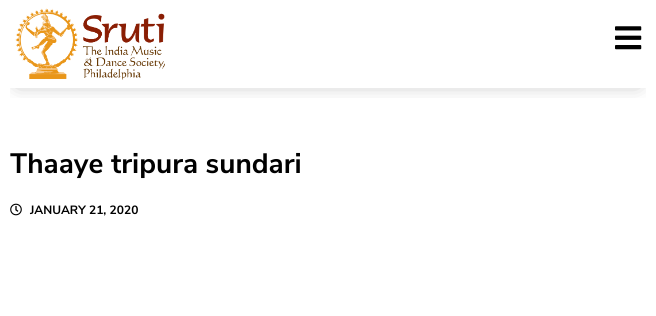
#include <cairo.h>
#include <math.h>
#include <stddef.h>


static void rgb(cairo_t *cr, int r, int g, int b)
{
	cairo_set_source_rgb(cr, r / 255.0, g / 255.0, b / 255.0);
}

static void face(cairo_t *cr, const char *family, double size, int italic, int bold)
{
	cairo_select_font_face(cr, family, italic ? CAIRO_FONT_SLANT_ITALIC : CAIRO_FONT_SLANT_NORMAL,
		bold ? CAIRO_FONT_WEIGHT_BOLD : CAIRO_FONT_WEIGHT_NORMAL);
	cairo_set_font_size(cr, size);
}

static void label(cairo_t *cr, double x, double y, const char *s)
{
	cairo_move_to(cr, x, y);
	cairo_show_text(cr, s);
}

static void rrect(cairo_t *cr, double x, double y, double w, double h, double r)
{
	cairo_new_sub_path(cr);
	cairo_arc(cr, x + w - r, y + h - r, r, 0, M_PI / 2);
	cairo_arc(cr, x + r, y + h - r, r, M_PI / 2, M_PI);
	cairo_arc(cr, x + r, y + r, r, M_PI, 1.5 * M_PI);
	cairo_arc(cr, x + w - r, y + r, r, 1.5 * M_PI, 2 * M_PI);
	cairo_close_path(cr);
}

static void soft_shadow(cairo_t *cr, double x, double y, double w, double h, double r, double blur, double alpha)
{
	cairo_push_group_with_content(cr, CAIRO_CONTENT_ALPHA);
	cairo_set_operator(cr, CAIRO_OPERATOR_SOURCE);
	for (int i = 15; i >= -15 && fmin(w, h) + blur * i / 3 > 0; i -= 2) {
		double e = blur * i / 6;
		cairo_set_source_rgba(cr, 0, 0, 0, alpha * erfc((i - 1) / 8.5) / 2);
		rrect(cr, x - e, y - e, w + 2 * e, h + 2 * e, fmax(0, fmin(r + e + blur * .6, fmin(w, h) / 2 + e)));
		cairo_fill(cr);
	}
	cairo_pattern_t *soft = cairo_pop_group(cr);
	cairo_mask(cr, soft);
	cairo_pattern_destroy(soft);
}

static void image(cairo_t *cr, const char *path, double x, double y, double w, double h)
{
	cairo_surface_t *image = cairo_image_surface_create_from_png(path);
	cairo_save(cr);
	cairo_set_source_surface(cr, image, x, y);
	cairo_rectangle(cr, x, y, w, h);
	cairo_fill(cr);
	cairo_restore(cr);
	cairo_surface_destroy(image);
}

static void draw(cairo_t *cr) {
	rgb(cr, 255, 255, 255);
	cairo_paint(cr);
	cairo_save(cr);
	cairo_rectangle(cr, 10, 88, 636, 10);
	cairo_clip(cr);
	rgb(cr, 0, 0, 0);
	soft_shadow(cr, 18, 31, 620, 52, 0, 10, 0.31);
	cairo_restore(cr);
	image(cr, "image0.png", 15, 8, 150, 72);
	image(cr, "image1.png", 615, 26, 27, 24);
	face(cr, "Nunito Sans", 28, 0, 1);
	rgb(cr, 0, 0, 0);
	label(cr, 10, 173, "Thaaye tripura sundari");
	image(cr, "image2.png", 10, 203, 12, 13);
	face(cr, "Nunito Sans", 12, 0, 1);
	label(cr, 30, 214, "JANUARY 21, 2020");
}

int main(void) {
	cairo_surface_t *surface = cairo_image_surface_create(CAIRO_FORMAT_RGB24, 656, 316);
	cairo_t *cr = cairo_create(surface);
	cairo_font_options_t *options = cairo_font_options_create();
	cairo_font_options_set_hint_metrics(options, CAIRO_HINT_METRICS_OFF);
	cairo_font_options_set_hint_style(options, CAIRO_HINT_STYLE_NONE);
	cairo_set_font_options(cr, options);
	cairo_set_miter_limit(cr, 4);
	draw(cr);
	cairo_surface_write_to_png(surface, "render.png");
	cairo_font_options_destroy(options);
	cairo_destroy(cr);
	cairo_surface_destroy(surface);
	return 0;
}
